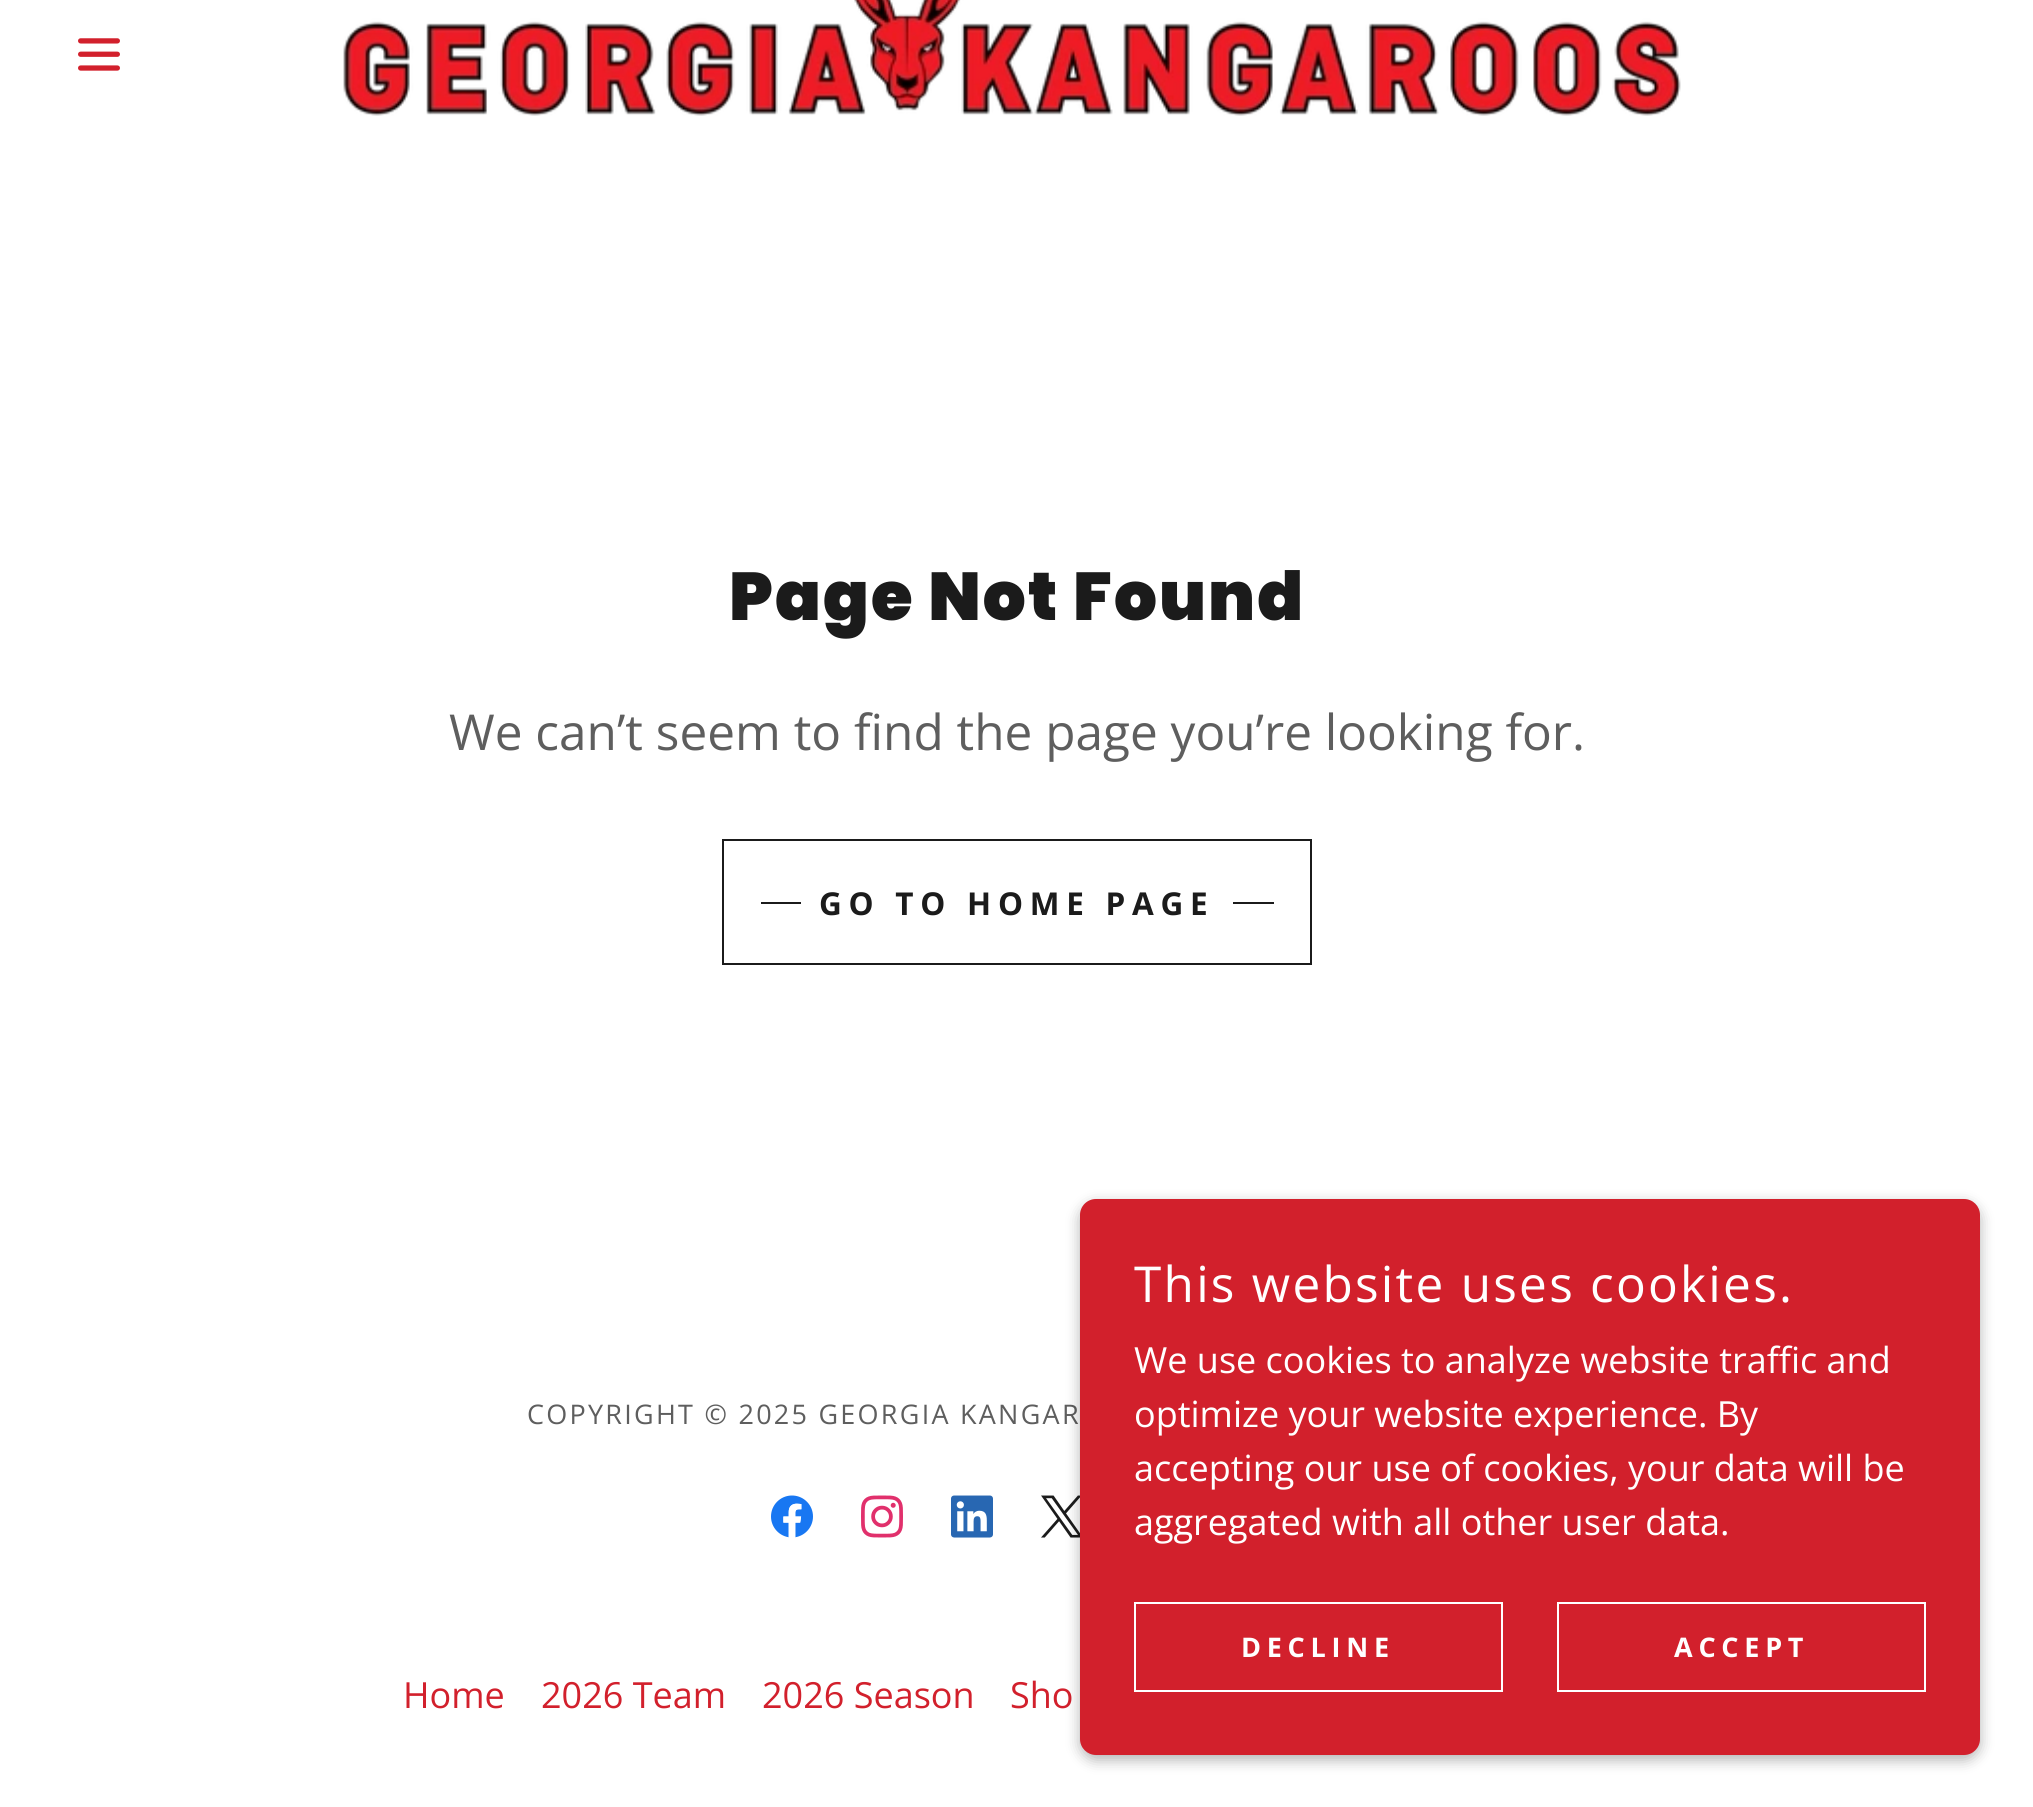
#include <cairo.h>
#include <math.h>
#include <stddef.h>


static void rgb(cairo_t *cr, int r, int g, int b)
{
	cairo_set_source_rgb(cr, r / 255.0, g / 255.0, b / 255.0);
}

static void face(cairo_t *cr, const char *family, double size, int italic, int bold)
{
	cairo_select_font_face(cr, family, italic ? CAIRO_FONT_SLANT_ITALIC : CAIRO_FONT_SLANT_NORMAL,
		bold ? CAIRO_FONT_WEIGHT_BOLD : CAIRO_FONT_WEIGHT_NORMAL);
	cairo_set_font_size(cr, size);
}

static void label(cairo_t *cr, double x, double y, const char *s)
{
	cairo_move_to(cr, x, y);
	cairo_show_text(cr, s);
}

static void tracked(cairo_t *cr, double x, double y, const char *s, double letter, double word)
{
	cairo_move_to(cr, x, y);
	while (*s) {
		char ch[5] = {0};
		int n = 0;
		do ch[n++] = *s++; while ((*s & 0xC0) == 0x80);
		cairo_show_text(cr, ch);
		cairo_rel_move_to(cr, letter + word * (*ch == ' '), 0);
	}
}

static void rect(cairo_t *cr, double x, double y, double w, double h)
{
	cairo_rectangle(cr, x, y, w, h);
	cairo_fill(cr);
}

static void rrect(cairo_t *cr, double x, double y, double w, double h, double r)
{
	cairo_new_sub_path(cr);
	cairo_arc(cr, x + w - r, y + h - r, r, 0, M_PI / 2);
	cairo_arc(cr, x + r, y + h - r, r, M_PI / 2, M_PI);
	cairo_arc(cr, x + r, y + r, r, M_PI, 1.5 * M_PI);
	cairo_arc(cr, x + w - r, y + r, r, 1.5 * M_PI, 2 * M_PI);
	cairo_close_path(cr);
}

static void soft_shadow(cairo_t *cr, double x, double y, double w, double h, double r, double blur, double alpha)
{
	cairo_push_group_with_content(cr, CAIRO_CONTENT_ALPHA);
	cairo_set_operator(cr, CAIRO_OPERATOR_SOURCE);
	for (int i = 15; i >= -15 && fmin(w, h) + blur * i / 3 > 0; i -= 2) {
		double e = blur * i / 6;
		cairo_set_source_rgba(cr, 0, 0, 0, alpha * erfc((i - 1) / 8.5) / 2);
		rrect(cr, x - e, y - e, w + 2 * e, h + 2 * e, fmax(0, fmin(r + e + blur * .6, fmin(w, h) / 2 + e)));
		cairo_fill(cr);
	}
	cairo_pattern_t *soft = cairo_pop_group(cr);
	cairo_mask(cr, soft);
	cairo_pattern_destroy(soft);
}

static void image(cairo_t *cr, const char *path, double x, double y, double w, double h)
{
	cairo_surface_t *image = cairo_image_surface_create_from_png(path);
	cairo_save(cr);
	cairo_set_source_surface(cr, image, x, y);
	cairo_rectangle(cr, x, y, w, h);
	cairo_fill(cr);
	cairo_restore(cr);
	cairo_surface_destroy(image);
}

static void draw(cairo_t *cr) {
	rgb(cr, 255, 255, 255);
	cairo_paint(cr);
	image(cr, "image0.png", 78, 38, 42, 33);
	image(cr, "image1.png", 343, 0, 1338, 116);
	face(cr, "Poppins Black", 67.5, 0, 0);
	rgb(cr, 27, 27, 27);
	tracked(cr, 729, 620, "Page Not Found", 2.1, 0);
	face(cr, "Open Sans", 49.5, 0, 0);
	rgb(cr, 94, 94, 94);
	label(cr, 449, 750, "We can’t seem to find the page you’re looking for.");
	cairo_rectangle(cr, 723, 840, 588, 124);
	rgb(cr, 27, 27, 27);
	cairo_stroke(cr);
	rect(cr, 761, 902, 40, 2);
	face(cr, "Open Sans", 31.5, 0, 1);
	tracked(cr, 819, 915, "GO TO HOME PAGE", 6.75, 0);
	rect(cr, 1233, 902, 41, 2);
	face(cr, "Open Sans", 27, 0, 0);
	rgb(cr, 94, 94, 94);
	tracked(cr, 527, 1424, "COPYRIGHT © 2025 GEORGIA KANGAR", 2.25, 0);
	image(cr, "image2.png", 771, 1495, 42, 43);
	image(cr, "image3.png", 861, 1495, 42, 43);
	image(cr, "image4.png", 951, 1495, 42, 43);
	image(cr, "image5.png", 1041, 1495, 39, 43);
	face(cr, "Open Sans", 36, 0, 0);
	rgb(cr, 210, 32, 44);
	label(cr, 403, 1708, "Home");
	label(cr, 541, 1708, "2026 Team");
	label(cr, 762, 1708, "2026 Season");
	label(cr, 1010, 1708, "Sho");
	rgb(cr, 0, 0, 0);
	soft_shadow(cr, 1080, 1204, 900, 556, 16, 7, 0.3);
	rgb(cr, 210, 32, 44);
	rrect(cr, 1080, 1199, 900, 556, 16);
	cairo_fill(cr);
	face(cr, "Open Sans", 49.5, 0, 0);
	rgb(cr, 255, 255, 255);
	tracked(cr, 1134, 1302, "This website uses cookies.", 2.25, 0);
	face(cr, "Open Sans", 36, 0, 0);
	label(cr, 1134, 1373, "We use cookies to analyze website traffic and");
	label(cr, 1134, 1427, "optimize your website experience. By");
	label(cr, 1134, 1481, "accepting our use of cookies, your data will be");
	label(cr, 1134, 1535, "aggregated with all other user data.");
	cairo_rectangle(cr, 1135, 1603, 367, 88);
	cairo_stroke(cr);
	face(cr, "Open Sans", 27, 0, 1);
	tracked(cr, 1241, 1657, "DECLINE", 5.75, 0);
	cairo_rectangle(cr, 1558, 1603, 367, 88);
	cairo_stroke(cr);
	tracked(cr, 1674, 1657, "ACCEPT", 5.75, 0);
}

int main(void) {
	cairo_surface_t *surface = cairo_image_surface_create(CAIRO_FORMAT_RGB24, 2033, 1807);
	cairo_t *cr = cairo_create(surface);
	cairo_font_options_t *options = cairo_font_options_create();
	cairo_font_options_set_hint_metrics(options, CAIRO_HINT_METRICS_OFF);
	cairo_font_options_set_hint_style(options, CAIRO_HINT_STYLE_NONE);
	cairo_set_font_options(cr, options);
	cairo_set_miter_limit(cr, 4);
	draw(cr);
	cairo_surface_write_to_png(surface, "render.png");
	cairo_font_options_destroy(options);
	cairo_destroy(cr);
	cairo_surface_destroy(surface);
	return 0;
}
